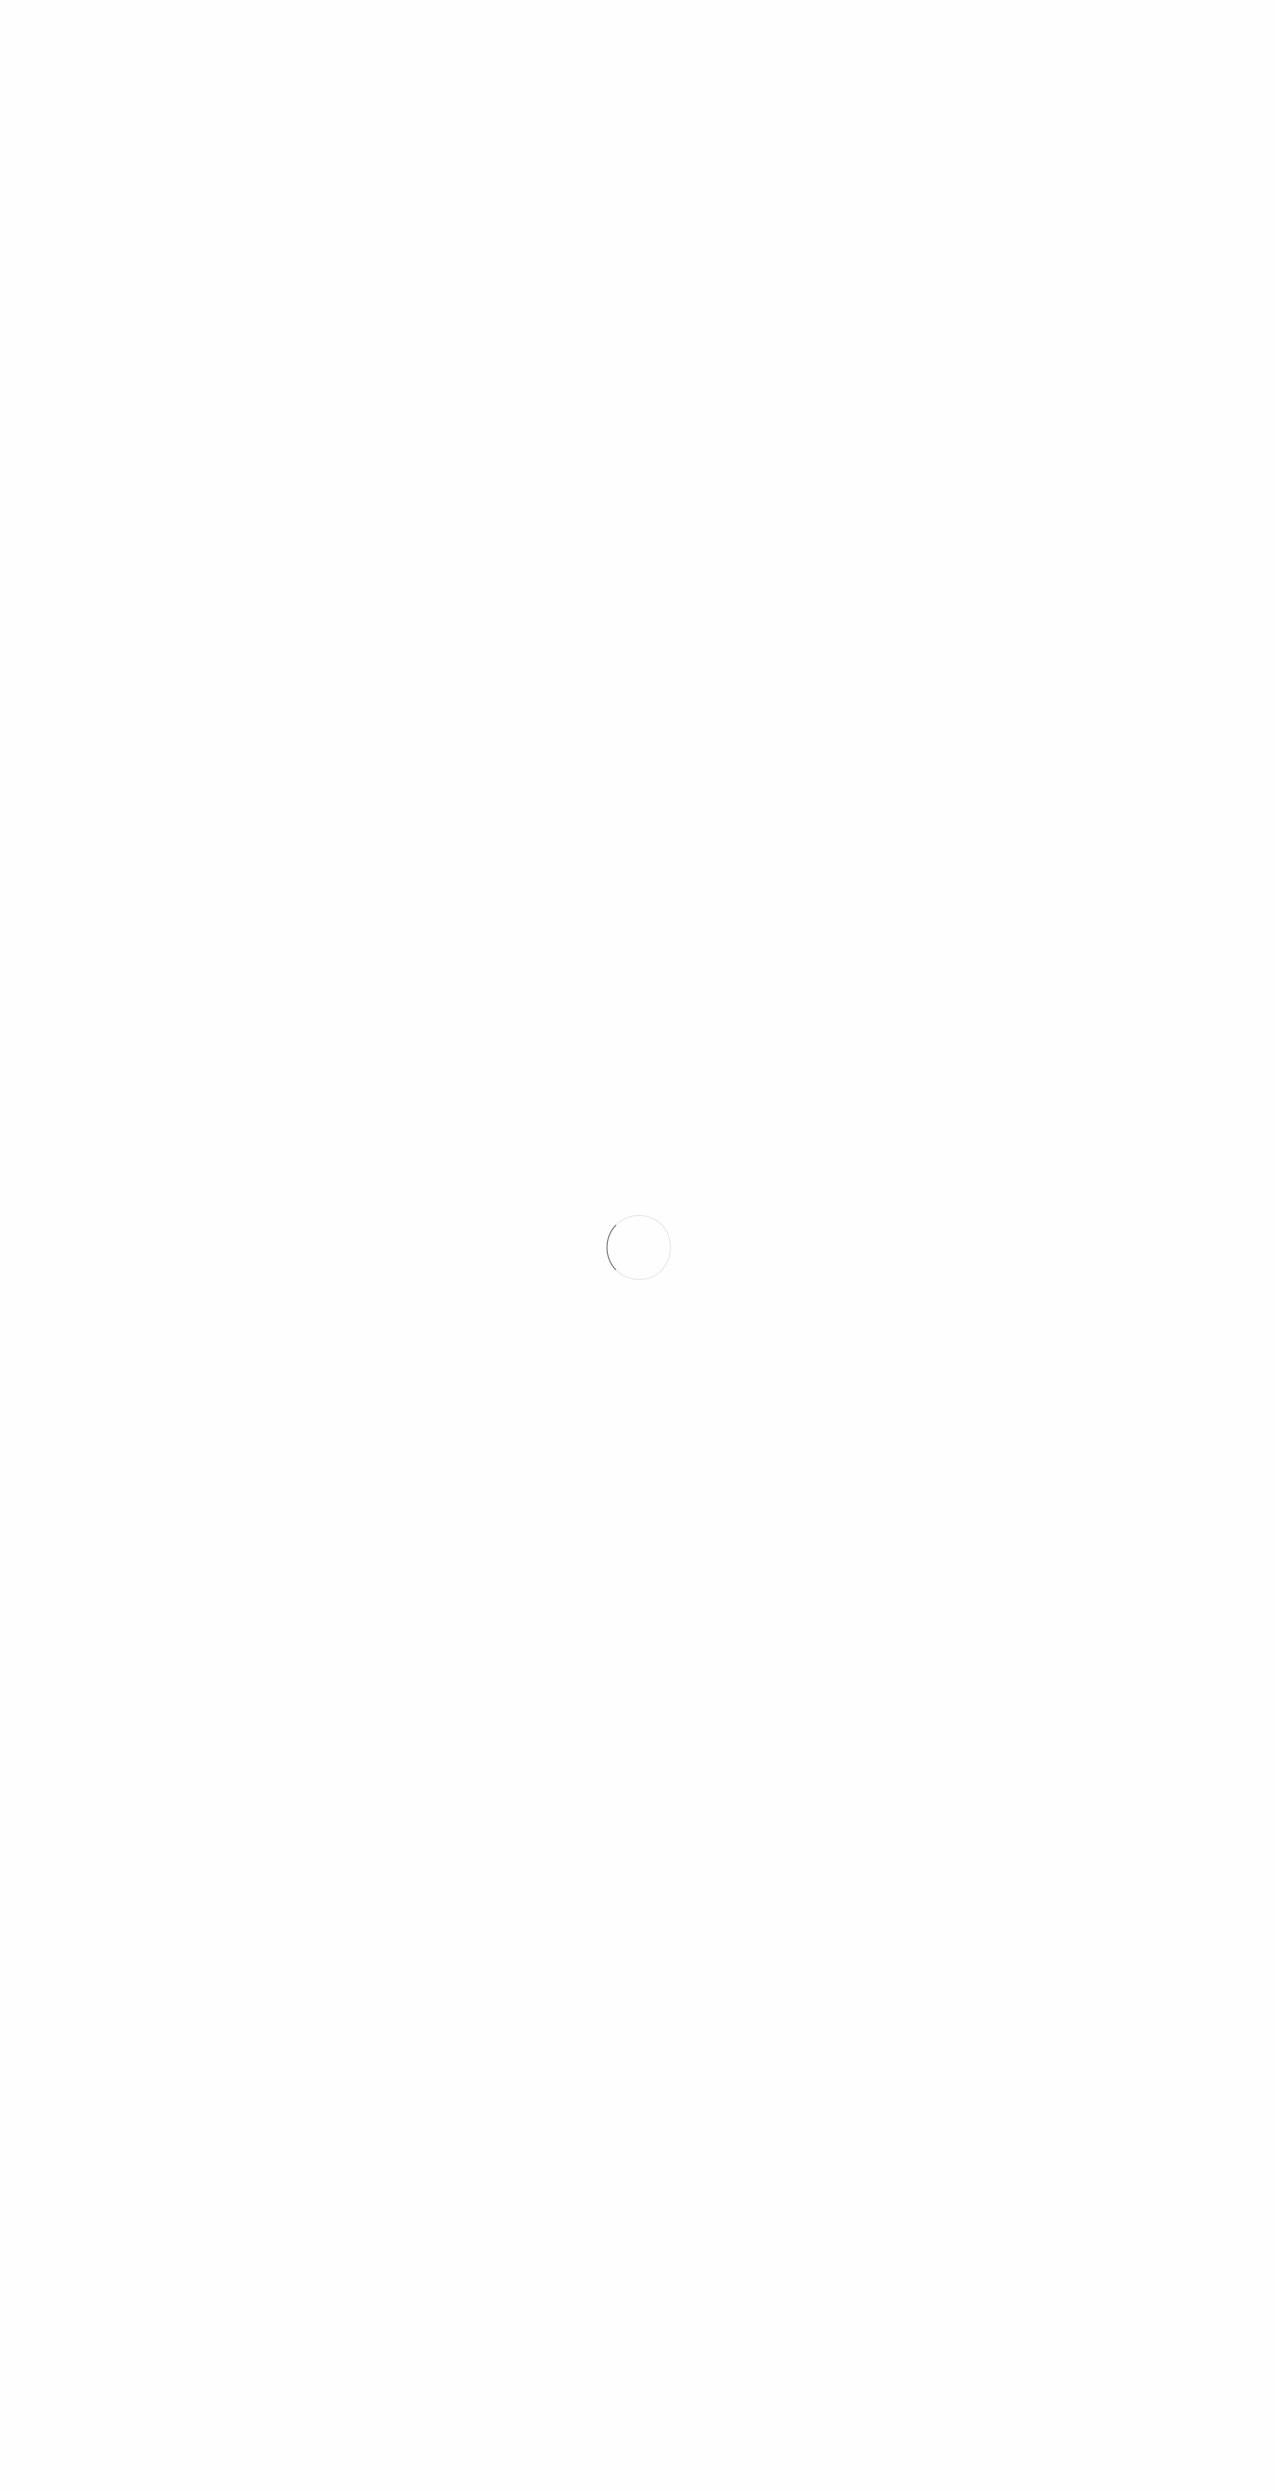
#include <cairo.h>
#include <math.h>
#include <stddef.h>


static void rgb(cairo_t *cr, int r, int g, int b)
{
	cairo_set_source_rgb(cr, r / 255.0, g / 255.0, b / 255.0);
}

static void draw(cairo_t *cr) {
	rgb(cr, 254, 254, 254);
	cairo_paint(cr);
	cairo_new_path(cr);
	cairo_move_to(cr, 616, 1225);
	cairo_curve_to(cr, 623.5, 1217.5, 634.5, 1214, 645, 1216);
	cairo_curve_to(cr, 682.5, 1223.5, 677, 1279.5, 639, 1279.5);
	cairo_curve_to(cr, 630.5, 1279.5, 622, 1276, 616, 1270);
	rgb(cr, 234, 234, 234);
	cairo_set_line_width(cr, 1.2);
	cairo_stroke(cr);
	cairo_new_path(cr);
	cairo_move_to(cr, 616, 1270);
	cairo_curve_to(cr, 604, 1258, 604, 1237, 616, 1225);
	rgb(cr, 127, 127, 127);
	cairo_stroke(cr);
}

int main(void) {
	cairo_surface_t *surface = cairo_image_surface_create(CAIRO_FORMAT_RGB24, 1275, 2491);
	cairo_t *cr = cairo_create(surface);
	cairo_font_options_t *options = cairo_font_options_create();
	cairo_font_options_set_hint_metrics(options, CAIRO_HINT_METRICS_OFF);
	cairo_font_options_set_hint_style(options, CAIRO_HINT_STYLE_NONE);
	cairo_set_font_options(cr, options);
	cairo_set_miter_limit(cr, 4);
	draw(cr);
	cairo_surface_write_to_png(surface, "render.png");
	cairo_font_options_destroy(options);
	cairo_destroy(cr);
	cairo_surface_destroy(surface);
	return 0;
}
